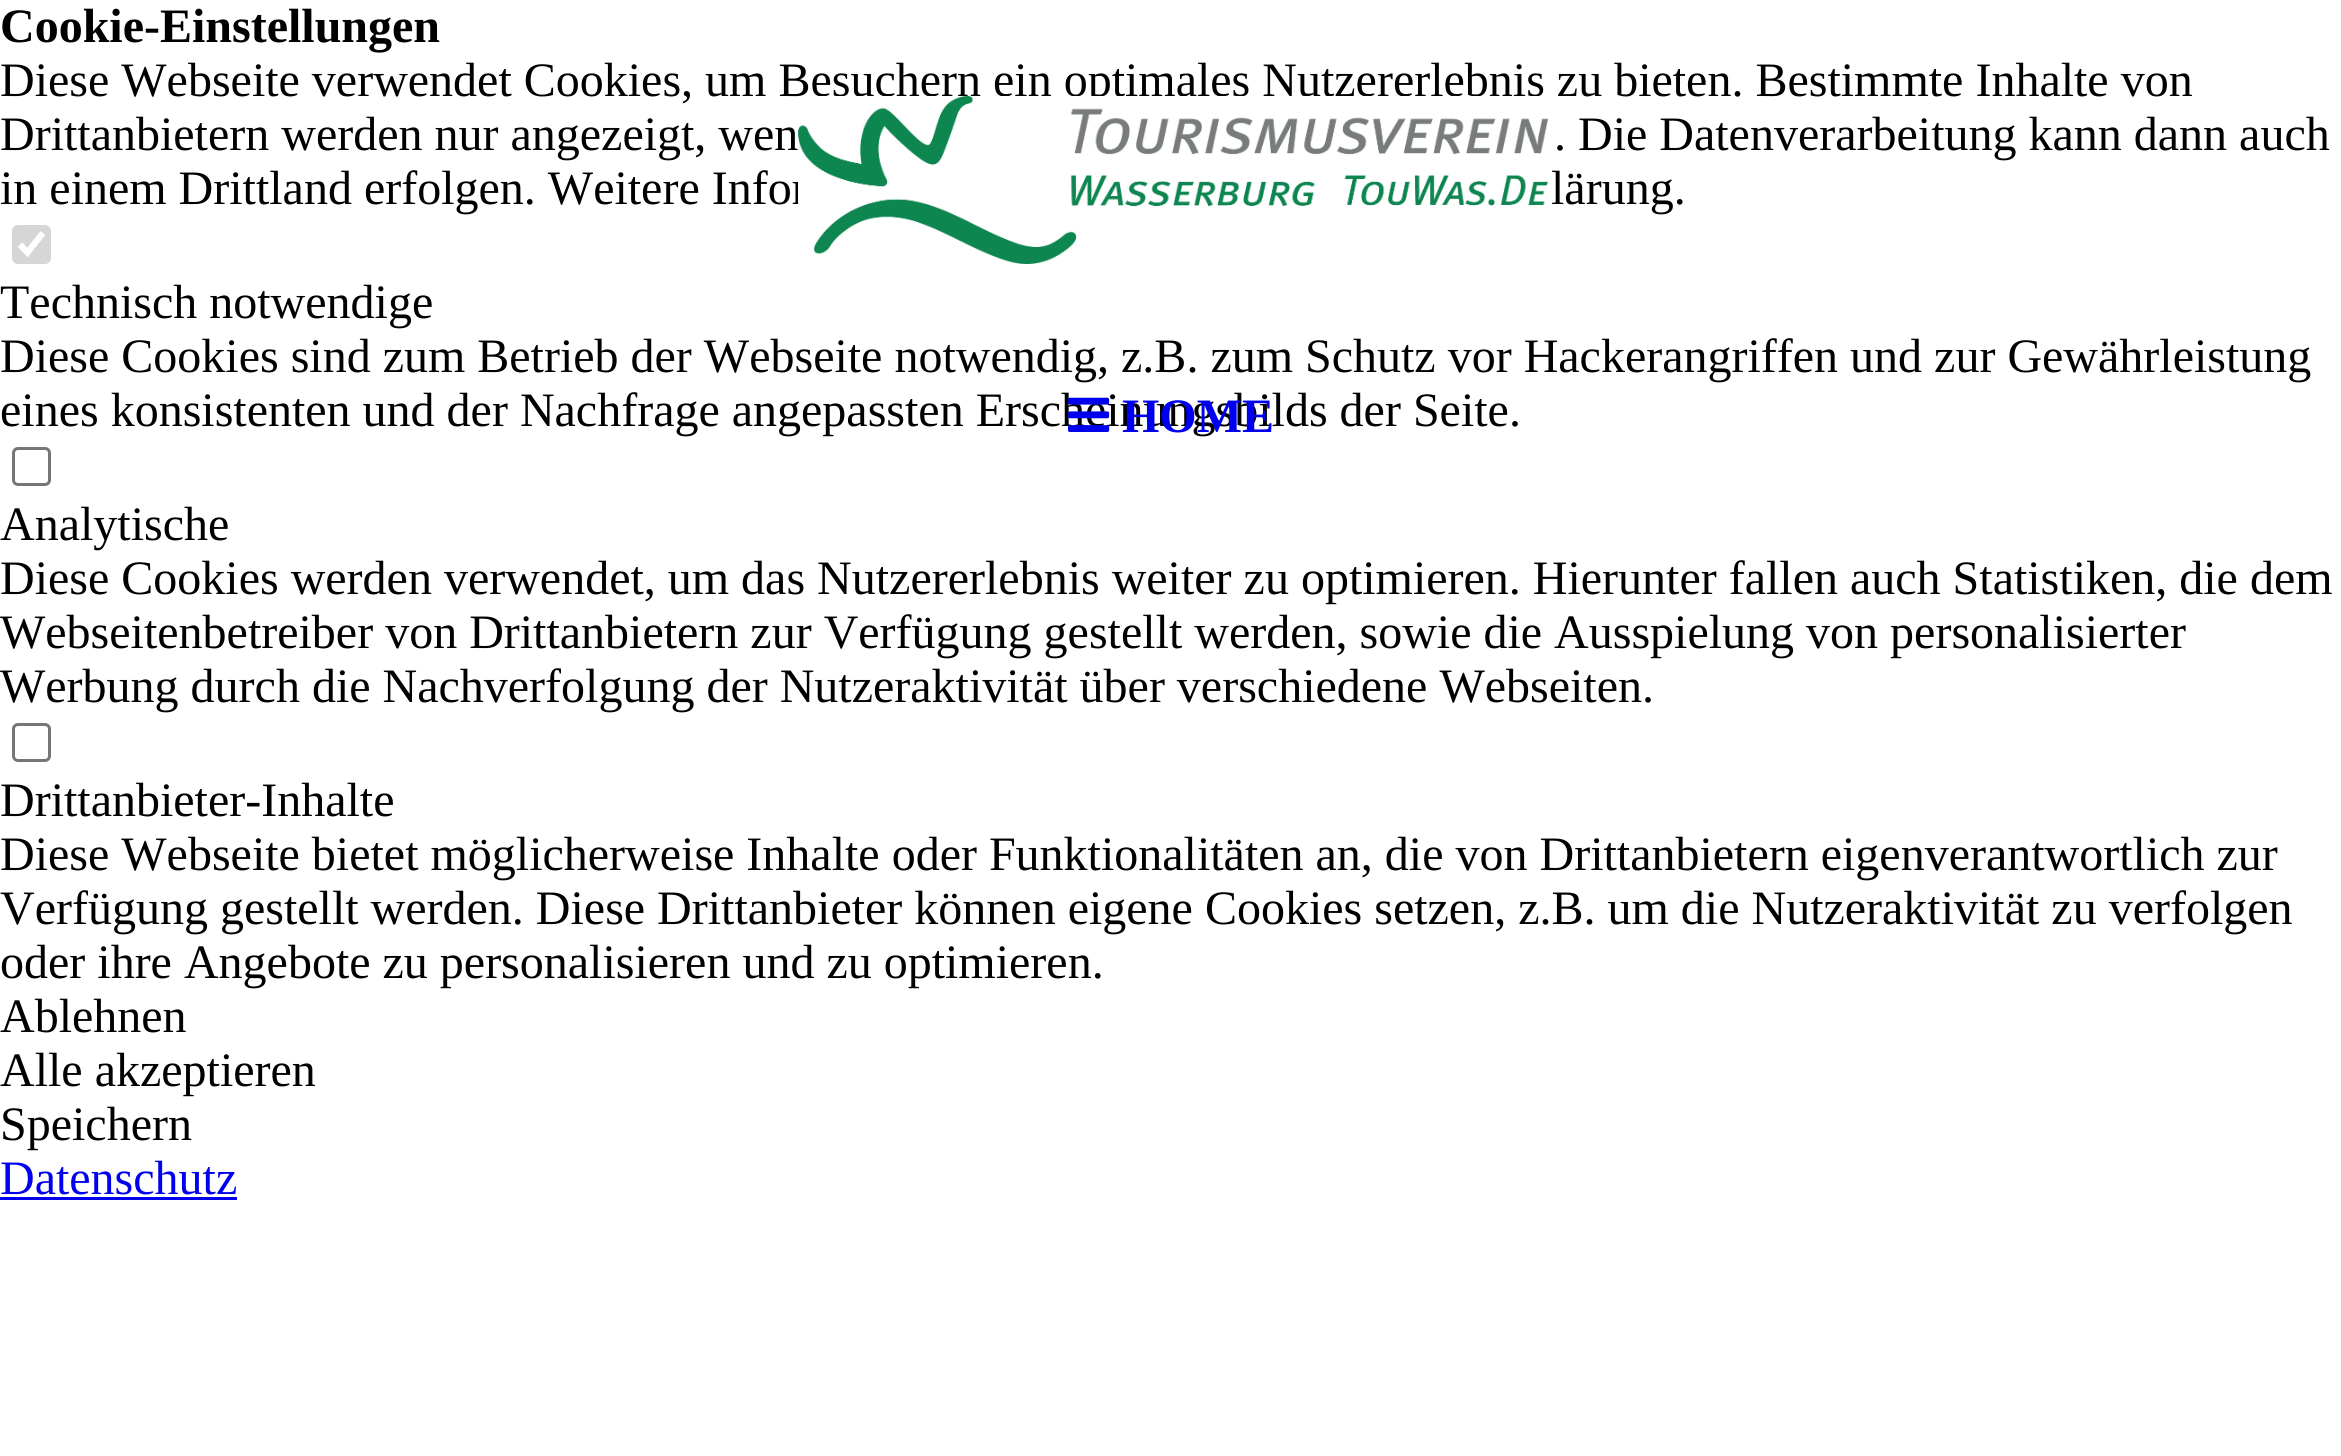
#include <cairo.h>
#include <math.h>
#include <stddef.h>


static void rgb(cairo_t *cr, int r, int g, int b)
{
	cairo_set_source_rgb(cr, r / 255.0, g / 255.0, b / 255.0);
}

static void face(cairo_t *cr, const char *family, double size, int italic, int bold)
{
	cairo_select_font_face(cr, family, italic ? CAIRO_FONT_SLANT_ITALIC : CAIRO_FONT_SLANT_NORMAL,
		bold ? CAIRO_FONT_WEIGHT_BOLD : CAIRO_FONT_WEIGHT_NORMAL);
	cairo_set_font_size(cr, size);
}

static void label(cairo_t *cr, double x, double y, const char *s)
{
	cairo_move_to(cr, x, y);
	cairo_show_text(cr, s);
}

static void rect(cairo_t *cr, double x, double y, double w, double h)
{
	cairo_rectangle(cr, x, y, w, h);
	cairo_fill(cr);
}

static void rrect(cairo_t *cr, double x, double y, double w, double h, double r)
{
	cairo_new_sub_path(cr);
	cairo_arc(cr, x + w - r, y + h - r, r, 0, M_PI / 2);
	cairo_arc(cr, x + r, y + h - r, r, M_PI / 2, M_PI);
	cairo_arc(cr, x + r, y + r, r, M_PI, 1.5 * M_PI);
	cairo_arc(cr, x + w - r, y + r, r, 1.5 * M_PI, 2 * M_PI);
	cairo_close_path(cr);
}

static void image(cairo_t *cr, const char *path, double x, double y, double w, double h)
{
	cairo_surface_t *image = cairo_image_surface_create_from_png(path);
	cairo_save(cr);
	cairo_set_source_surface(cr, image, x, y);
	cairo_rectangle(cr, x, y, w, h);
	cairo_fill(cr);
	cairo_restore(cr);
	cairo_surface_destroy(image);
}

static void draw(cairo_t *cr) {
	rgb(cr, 255, 255, 255);
	cairo_paint(cr);
	face(cr, "Liberation Serif", 48, 0, 1);
	rgb(cr, 0, 0, 0);
	label(cr, 0, 42, "Cookie-Einstellungen");
	face(cr, "Liberation Serif", 48, 0, 0);
	label(cr, 0, 96, "Diese Webseite verwendet Cookies, um Besuchern ein optimales Nutzererlebnis zu bieten. Bestimmte Inhalte von");
	label(cr, 0, 150, "Drittanbietern werden nur angezeigt, wen");
	label(cr, 1554, 150, ". Die Datenverarbeitung kann dann auch");
	label(cr, 0, 204, "in einem Drittland erfolgen. Weitere Infor");
	label(cr, 1551, 204, "lärung.");
	rgb(cr, 214, 214, 214);
	rrect(cr, 12, 225, 39, 39, 6);
	cairo_fill(cr);
	cairo_new_path(cr);
	cairo_move_to(cr, 20, 244.5);
	cairo_line_to(cr, 27.5, 252.5);
	cairo_line_to(cr, 43, 233);
	rgb(cr, 255, 255, 255);
	cairo_set_line_width(cr, 6.2);
	cairo_stroke(cr);
	rgb(cr, 0, 0, 0);
	label(cr, 0, 318, "Technisch notwendige");
	label(cr, 0, 372, "Diese Cookies sind zum Betrieb der Webseite notwendig, z.B. zum Schutz vor Hackerangriffen und zur Gewährleistung");
	label(cr, 0, 426, "eines konsistenten und der Nachfrage angepassten Erscheinungsbilds der Seite.");
	rrect(cr, 13.5, 448.5, 36, 36, 4.5);
	rgb(cr, 118, 118, 118);
	cairo_set_line_width(cr, 3);
	cairo_stroke(cr);
	rgb(cr, 0, 0, 0);
	label(cr, 0, 540, "Analytische");
	label(cr, 0, 594, "Diese Cookies werden verwendet, um das Nutzererlebnis weiter zu optimieren. Hierunter fallen auch Statistiken, die dem");
	label(cr, 0, 648, "Webseitenbetreiber von Drittanbietern zur Verfügung gestellt werden, sowie die Ausspielung von personalisierter");
	label(cr, 0, 702, "Werbung durch die Nachverfolgung der Nutzeraktivität über verschiedene Webseiten.");
	rrect(cr, 13.5, 724.5, 36, 36, 4.5);
	rgb(cr, 118, 118, 118);
	cairo_stroke(cr);
	rgb(cr, 0, 0, 0);
	label(cr, 0, 816, "Drittanbieter-Inhalte");
	label(cr, 0, 870, "Diese Webseite bietet möglicherweise Inhalte oder Funktionalitäten an, die von Drittanbietern eigenverantwortlich zur");
	label(cr, 0, 924, "Verfügung gestellt werden. Diese Drittanbieter können eigene Cookies setzen, z.B. um die Nutzeraktivität zu verfolgen");
	label(cr, 0, 978, "oder ihre Angebote zu personalisieren und zu optimieren.");
	label(cr, 0, 1032, "Ablehnen");
	label(cr, 0, 1086, "Alle akzeptieren");
	label(cr, 0, 1140, "Speichern");
	rgb(cr, 0, 0, 238);
	label(cr, 0, 1194, "Datenschutz");
	rect(cr, 0, 1197, 237, 3);
	image(cr, "image0.png", 798, 96, 750, 168);
	image(cr, "image1.png", 1068, 397, 42, 35);
	face(cr, "Liberation Serif", 48, 0, 1);
	label(cr, 1122, 432, "HOME");
}

int main(void) {
	cairo_surface_t *surface = cairo_image_surface_create(CAIRO_FORMAT_RGB24, 2341, 1456);
	cairo_t *cr = cairo_create(surface);
	cairo_font_options_t *options = cairo_font_options_create();
	cairo_font_options_set_hint_metrics(options, CAIRO_HINT_METRICS_OFF);
	cairo_font_options_set_hint_style(options, CAIRO_HINT_STYLE_NONE);
	cairo_set_font_options(cr, options);
	cairo_set_miter_limit(cr, 4);
	draw(cr);
	cairo_surface_write_to_png(surface, "render.png");
	cairo_font_options_destroy(options);
	cairo_destroy(cr);
	cairo_surface_destroy(surface);
	return 0;
}
